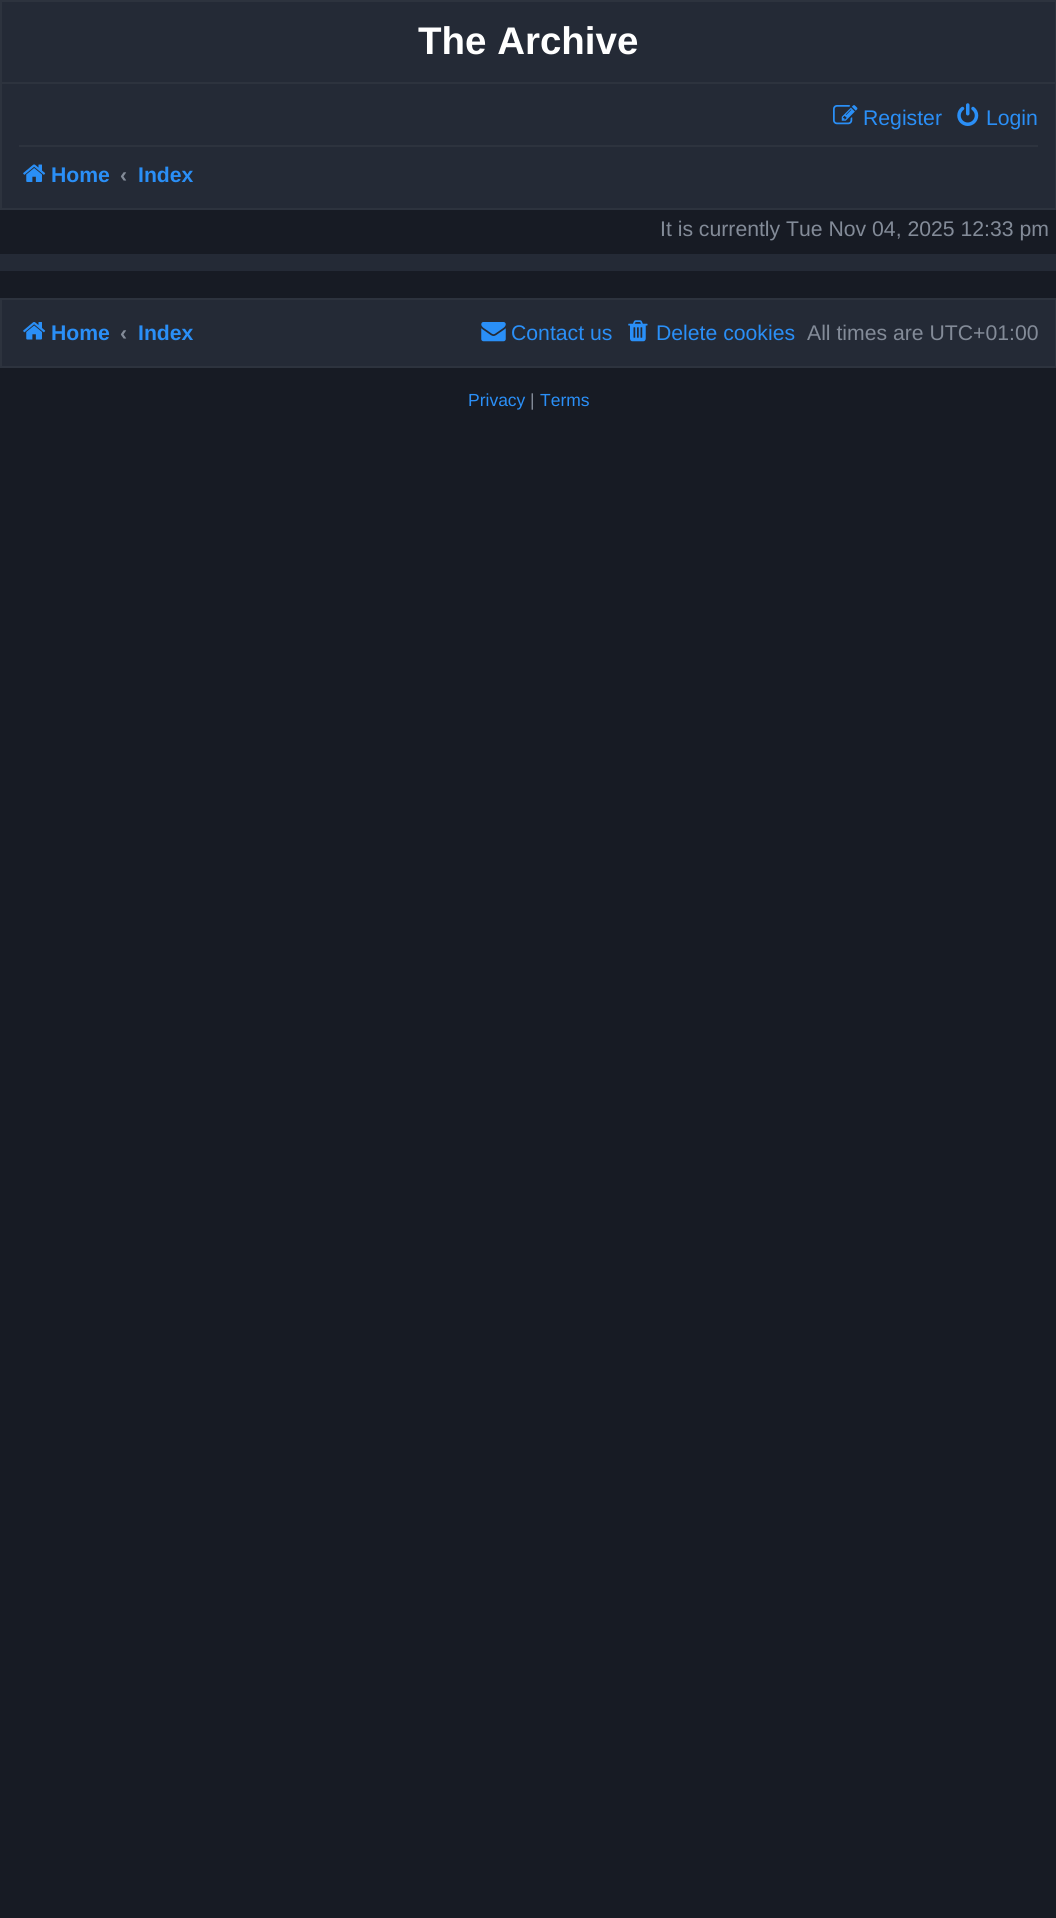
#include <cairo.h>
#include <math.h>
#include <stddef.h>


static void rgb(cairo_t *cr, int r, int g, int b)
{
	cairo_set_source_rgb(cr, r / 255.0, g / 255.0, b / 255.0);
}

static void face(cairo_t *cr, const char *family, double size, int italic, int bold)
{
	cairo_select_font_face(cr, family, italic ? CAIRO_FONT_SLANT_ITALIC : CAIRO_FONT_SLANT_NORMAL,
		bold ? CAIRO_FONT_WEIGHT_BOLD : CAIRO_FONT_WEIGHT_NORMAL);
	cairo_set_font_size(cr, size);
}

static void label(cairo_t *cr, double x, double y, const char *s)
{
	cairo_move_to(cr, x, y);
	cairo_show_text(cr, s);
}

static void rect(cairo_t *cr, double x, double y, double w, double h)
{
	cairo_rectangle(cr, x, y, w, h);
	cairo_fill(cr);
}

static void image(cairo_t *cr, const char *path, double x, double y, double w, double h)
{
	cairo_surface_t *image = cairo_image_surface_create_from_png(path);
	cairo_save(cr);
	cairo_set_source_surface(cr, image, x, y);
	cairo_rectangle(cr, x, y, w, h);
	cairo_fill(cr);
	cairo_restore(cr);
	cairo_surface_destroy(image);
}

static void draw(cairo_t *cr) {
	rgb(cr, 23, 27, 36);
	cairo_paint(cr);
	rgb(cr, 36, 42, 54);
	cairo_rectangle(cr, 1, 1, 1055, 82);
	cairo_fill_preserve(cr);
	rgb(cr, 45, 51, 62);
	cairo_stroke(cr);
	face(cr, "Liberation Sans", 38.5, 0, 1);
	rgb(cr, 255, 255, 255);
	label(cr, 418, 54, "The Archive");
	rgb(cr, 36, 42, 54);
	cairo_rectangle(cr, 1, 83, 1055, 126);
	cairo_fill_preserve(cr);
	rgb(cr, 45, 51, 62);
	cairo_stroke(cr);
	image(cr, "image0.png", 833, 105, 25, 20);
	face(cr, "Liberation Sans", 21.2, 0, 0);
	rgb(cr, 42, 143, 247);
	label(cr, 863, 125, "Register");
	image(cr, "image1.png", 957, 103, 22, 23);
	label(cr, 986, 125, "Login");
	rgb(cr, 45, 51, 62);
	rect(cr, 19, 145, 1019, 2);
	image(cr, "image2.png", 23, 164, 23, 18);
	face(cr, "Liberation Sans", 21.2, 0, 1);
	rgb(cr, 42, 143, 247);
	label(cr, 51, 182, "Home");
	rgb(cr, 131, 139, 152);
	label(cr, 120, 182, "‹");
	rgb(cr, 42, 143, 247);
	label(cr, 138, 182, "Index");
	face(cr, "Liberation Sans", 21.2, 0, 0);
	rgb(cr, 131, 139, 152);
	label(cr, 660, 236, "It is currently Tue Nov 04, 2025 12:33 pm");
	rgb(cr, 36, 42, 54);
	rect(cr, 0, 254, 1056, 17);
	cairo_rectangle(cr, 1, 299, 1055, 68);
	cairo_fill_preserve(cr);
	rgb(cr, 45, 51, 62);
	cairo_stroke(cr);
	image(cr, "image3.png", 23, 322, 23, 18);
	face(cr, "Liberation Sans", 21.2, 0, 1);
	rgb(cr, 42, 143, 247);
	label(cr, 51, 340, "Home");
	rgb(cr, 131, 139, 152);
	label(cr, 120, 340, "‹");
	rgb(cr, 42, 143, 247);
	label(cr, 138, 340, "Index");
	image(cr, "image4.png", 481, 322, 25, 20);
	face(cr, "Liberation Sans", 21.2, 0, 0);
	label(cr, 511, 340, "Contact us");
	image(cr, "image5.png", 628, 320, 20, 22);
	label(cr, 656, 340, "Delete cookies");
	rgb(cr, 131, 139, 152);
	label(cr, 807, 340, "All times are UTC+01:00");
	face(cr, "Liberation Sans", 17.5, 0, 0);
	rgb(cr, 42, 143, 247);
	label(cr, 468, 406, "Privacy");
	rgb(cr, 131, 139, 152);
	label(cr, 530, 406, "|");
	rgb(cr, 42, 143, 247);
	label(cr, 540, 406, "Terms");
}

int main(void) {
	cairo_surface_t *surface = cairo_image_surface_create(CAIRO_FORMAT_RGB24, 1056, 1918);
	cairo_t *cr = cairo_create(surface);
	cairo_font_options_t *options = cairo_font_options_create();
	cairo_font_options_set_hint_metrics(options, CAIRO_HINT_METRICS_OFF);
	cairo_font_options_set_hint_style(options, CAIRO_HINT_STYLE_NONE);
	cairo_set_font_options(cr, options);
	cairo_set_miter_limit(cr, 4);
	draw(cr);
	cairo_surface_write_to_png(surface, "render.png");
	cairo_font_options_destroy(options);
	cairo_destroy(cr);
	cairo_surface_destroy(surface);
	return 0;
}
